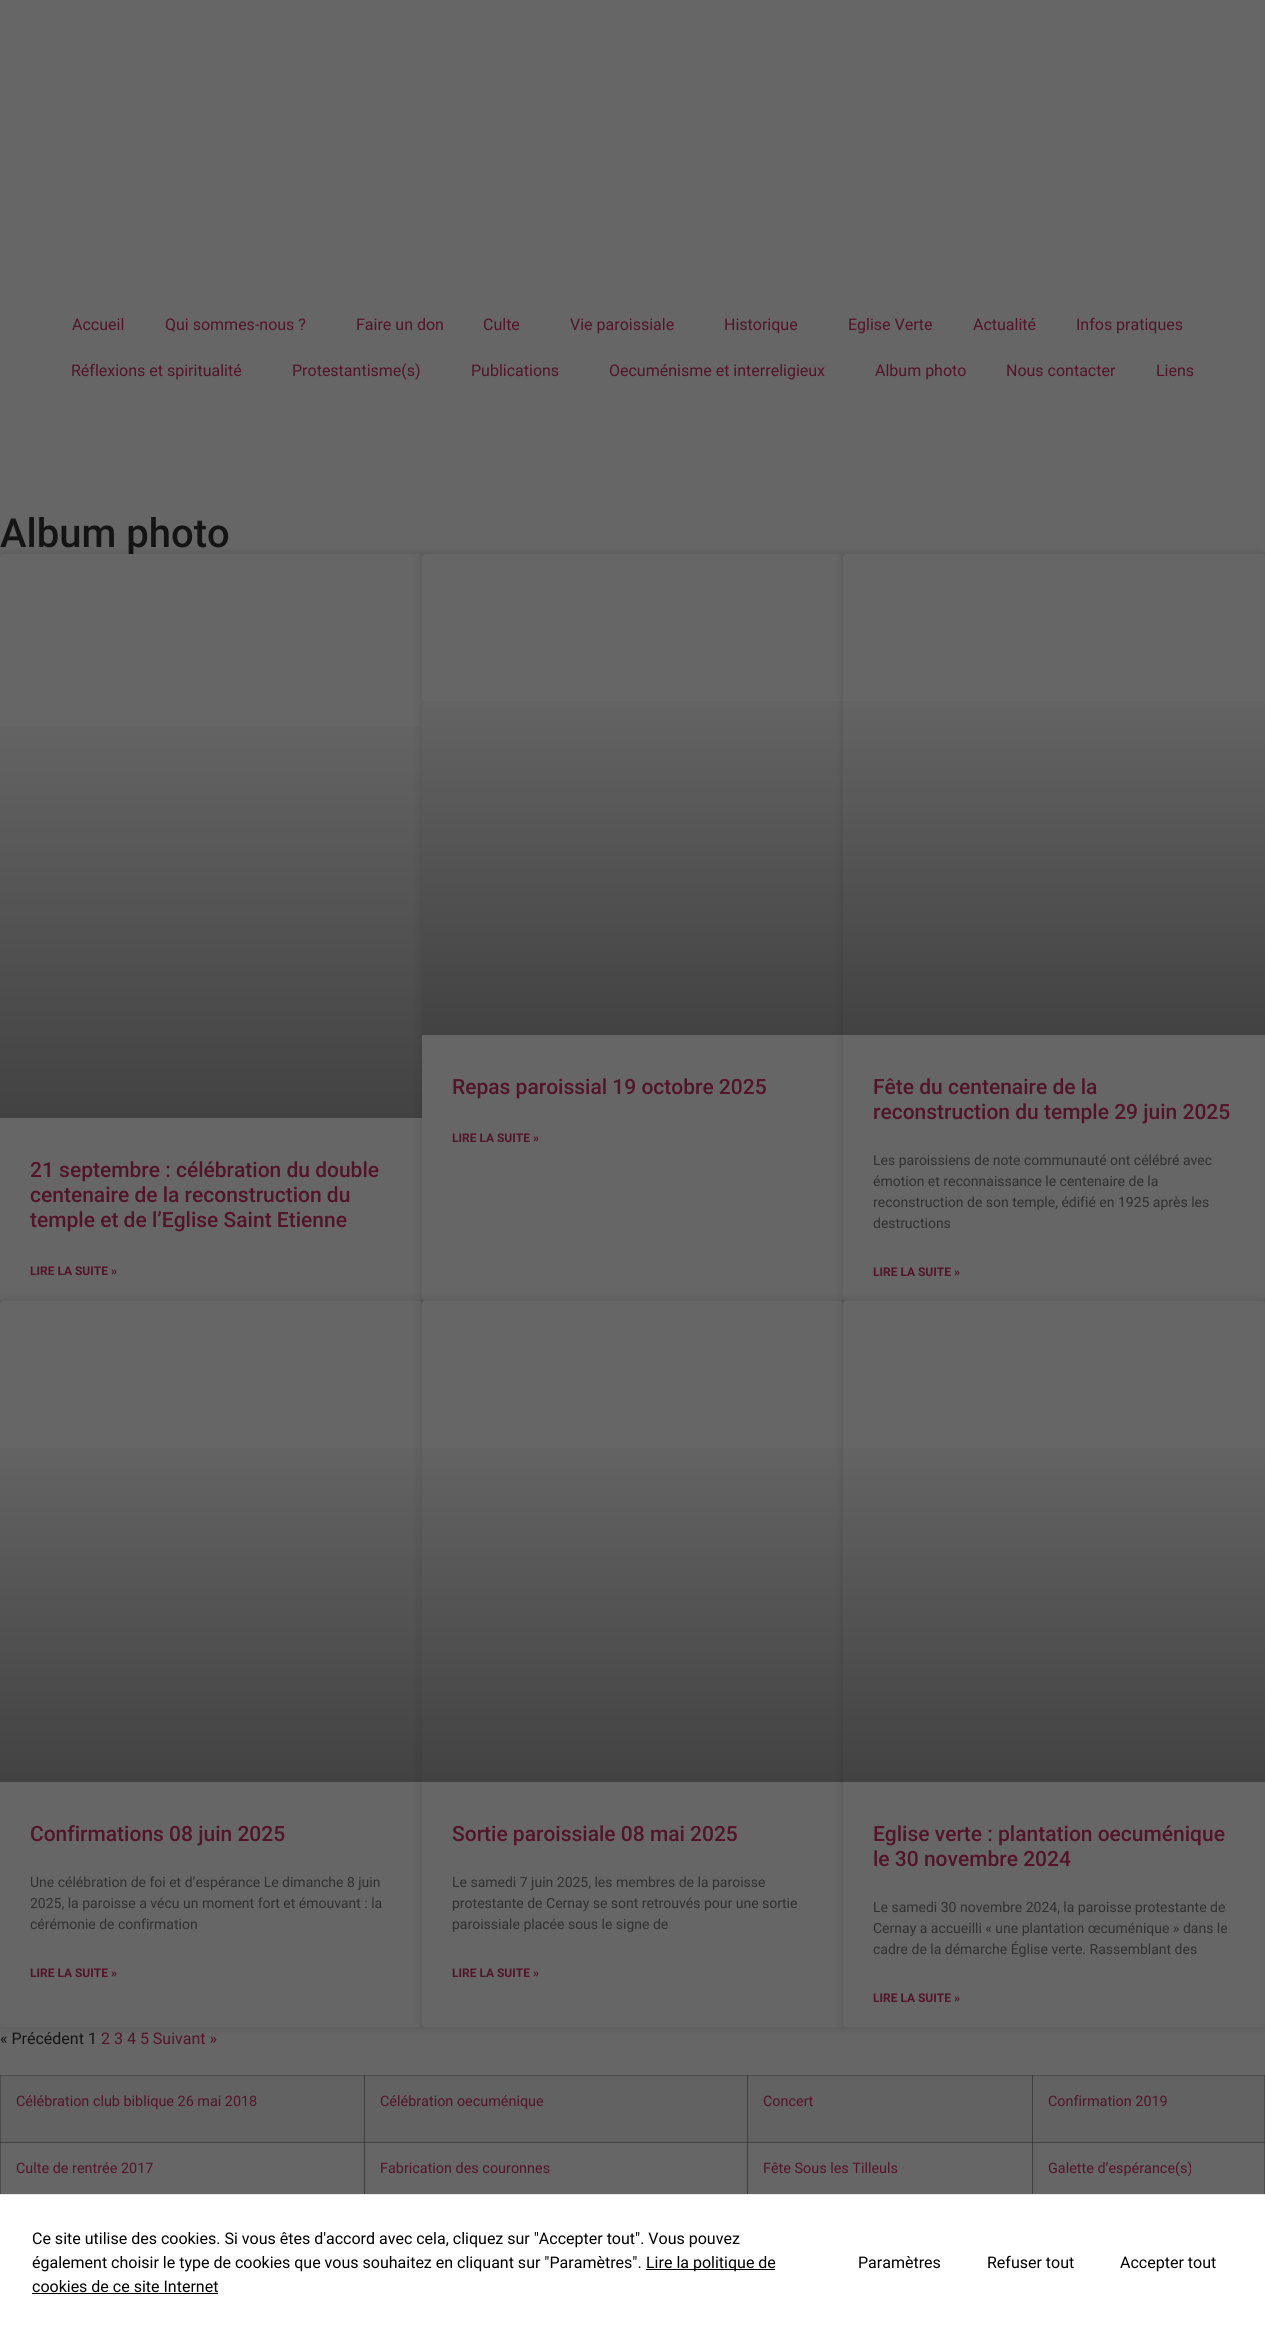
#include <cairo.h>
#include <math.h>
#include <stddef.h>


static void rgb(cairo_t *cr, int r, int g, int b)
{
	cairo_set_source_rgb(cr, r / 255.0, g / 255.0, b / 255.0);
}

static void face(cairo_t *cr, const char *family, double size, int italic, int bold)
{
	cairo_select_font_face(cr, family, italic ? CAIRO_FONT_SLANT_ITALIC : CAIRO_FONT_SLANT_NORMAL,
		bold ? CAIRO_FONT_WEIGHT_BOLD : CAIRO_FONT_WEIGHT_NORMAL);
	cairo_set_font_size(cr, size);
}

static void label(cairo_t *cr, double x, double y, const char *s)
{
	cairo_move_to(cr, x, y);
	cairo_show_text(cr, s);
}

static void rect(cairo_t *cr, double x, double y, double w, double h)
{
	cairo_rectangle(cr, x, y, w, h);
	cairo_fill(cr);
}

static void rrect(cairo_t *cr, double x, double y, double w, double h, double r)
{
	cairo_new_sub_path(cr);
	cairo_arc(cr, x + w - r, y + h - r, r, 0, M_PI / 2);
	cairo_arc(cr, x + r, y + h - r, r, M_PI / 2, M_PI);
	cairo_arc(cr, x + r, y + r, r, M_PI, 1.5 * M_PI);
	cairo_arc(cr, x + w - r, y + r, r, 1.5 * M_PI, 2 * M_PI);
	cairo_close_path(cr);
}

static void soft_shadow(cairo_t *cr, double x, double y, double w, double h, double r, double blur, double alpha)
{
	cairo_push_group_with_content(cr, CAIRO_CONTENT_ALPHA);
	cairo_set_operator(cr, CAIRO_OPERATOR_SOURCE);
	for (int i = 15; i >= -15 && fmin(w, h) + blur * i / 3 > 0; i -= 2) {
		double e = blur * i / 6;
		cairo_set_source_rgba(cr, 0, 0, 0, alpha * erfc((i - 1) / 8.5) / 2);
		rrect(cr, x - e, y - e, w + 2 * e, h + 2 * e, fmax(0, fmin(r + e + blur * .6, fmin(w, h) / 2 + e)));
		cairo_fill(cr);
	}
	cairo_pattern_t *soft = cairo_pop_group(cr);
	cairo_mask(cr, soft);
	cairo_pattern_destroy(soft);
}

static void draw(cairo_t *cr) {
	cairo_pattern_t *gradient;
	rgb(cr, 102, 102, 102);
	cairo_paint(cr);
	rgb(cr, 77, 77, 77);
	rect(cr, 0, 2075, 1, 119);
	rect(cr, 0, 2075, 1265, 1);
	rgb(cr, 64, 64, 64);
	rect(cr, 0, 2075, 1, 1);
	rgb(cr, 54, 54, 54);
	rect(cr, 364, 2075, 1, 1);
	rect(cr, 747, 2075, 1, 1);
	rect(cr, 0, 2142, 1, 1);
	rgb(cr, 64, 64, 64);
	rect(cr, 364, 2142, 1, 52);
	rect(cr, 747, 2142, 1, 52);
	rect(cr, 1032, 2142, 1, 52);
	rgb(cr, 77, 77, 77);
	rect(cr, 1264, 2142, 1, 52);
	face(cr, "Roboto", 16, 0, 0);
	rgb(cr, 82, 20, 41);
	label(cr, 72, 330, "Accueil");
	label(cr, 165, 330, "Qui sommes-nous ?");
	label(cr, 356, 330, "Faire un don");
	label(cr, 483, 330, "Culte");
	label(cr, 570, 330, "Vie paroissiale");
	label(cr, 724, 330, "Historique");
	label(cr, 848, 330, "Eglise Verte");
	label(cr, 973, 330, "Actualité");
	label(cr, 1076, 330, "Infos pratiques");
	label(cr, 71, 376, "Réflexions et spiritualité");
	label(cr, 292, 376, "Protestantisme(s)");
	label(cr, 471, 376, "Publications");
	label(cr, 609, 376, "Oecuménisme et interreligieux");
	label(cr, 875, 376, "Album photo");
	label(cr, 1006, 376, "Nous contacter");
	label(cr, 1156, 376, "Liens");
	face(cr, "Roboto Medium", 40, 0, 0);
	rgb(cr, 20, 20, 20);
	label(cr, 0, 547, "Album photo");
	rgb(cr, 0, 0, 0);
	soft_shadow(cr, 0, 554, 422, 747, 3, 5, 0.15);
	rgb(cr, 102, 102, 102);
	rrect(cr, 0, 554, 422, 747, 3);
	cairo_fill(cr);
	gradient = cairo_pattern_create_linear(211, 1118, 211, 554);
	cairo_pattern_add_color_stop_rgba(gradient, 0, 0, 0, 0, 0.35);
	cairo_pattern_add_color_stop_rgba(gradient, 0.75, 0, 0, 0, 0);
	cairo_set_source(cr, gradient);
	cairo_pattern_destroy(gradient);
	rect(cr, 0, 726, 422, 392);
	face(cr, "Roboto Medium", 21, 0, 0);
	rgb(cr, 82, 20, 41);
	label(cr, 30, 1177, "21 septembre : célébration du double");
	label(cr, 30, 1202, "centenaire de la reconstruction du");
	label(cr, 30, 1227, "temple et de l’Eglise Saint Etienne");
	face(cr, "Roboto", 12, 0, 1);
	label(cr, 30, 1275, "LIRE LA SUITE »");
	rgb(cr, 0, 0, 0);
	soft_shadow(cr, 422, 554, 421, 747, 3, 5, 0.15);
	rgb(cr, 102, 102, 102);
	rrect(cr, 422, 554, 421, 747, 3);
	cairo_fill(cr);
	gradient = cairo_pattern_create_linear(633, 1035, 633, 554);
	cairo_pattern_add_color_stop_rgba(gradient, 0, 0, 0, 0, 0.35);
	cairo_pattern_add_color_stop_rgba(gradient, 0.75, 0, 0, 0, 0);
	cairo_set_source(cr, gradient);
	cairo_pattern_destroy(gradient);
	rect(cr, 422, 701, 421, 334);
	face(cr, "Roboto Medium", 21, 0, 0);
	rgb(cr, 82, 20, 41);
	label(cr, 452, 1094, "Repas paroissial 19 octobre 2025");
	face(cr, "Roboto", 12, 0, 1);
	label(cr, 452, 1142, "LIRE LA SUITE »");
	rgb(cr, 0, 0, 0);
	soft_shadow(cr, 843, 554, 422, 747, 3, 5, 0.15);
	rgb(cr, 102, 102, 102);
	rrect(cr, 843, 554, 422, 747, 3);
	cairo_fill(cr);
	gradient = cairo_pattern_create_linear(1054, 1035, 1054, 554);
	cairo_pattern_add_color_stop_rgba(gradient, 0, 0, 0, 0, 0.35);
	cairo_pattern_add_color_stop_rgba(gradient, 0.75, 0, 0, 0, 0);
	cairo_set_source(cr, gradient);
	cairo_pattern_destroy(gradient);
	rect(cr, 843, 701, 422, 334);
	face(cr, "Roboto Medium", 21, 0, 0);
	rgb(cr, 82, 20, 41);
	label(cr, 873, 1094, "Fête du centenaire de la");
	label(cr, 873, 1119, "reconstruction du temple 29 juin 2025");
	face(cr, "Roboto", 14, 0, 0);
	rgb(cr, 48, 48, 48);
	label(cr, 873, 1165, "Les paroissiens de note communauté ont célébré avec");
	label(cr, 873, 1186, "émotion et reconnaissance le centenaire de la");
	label(cr, 873, 1207, "reconstruction de son temple, édifié en 1925 après les");
	label(cr, 873, 1228, "destructions");
	face(cr, "Roboto", 12, 0, 1);
	rgb(cr, 82, 20, 41);
	label(cr, 873, 1276, "LIRE LA SUITE »");
	rgb(cr, 0, 0, 0);
	soft_shadow(cr, 0, 1301, 422, 726, 3, 5, 0.15);
	rgb(cr, 102, 102, 102);
	rrect(cr, 0, 1301, 422, 726, 3);
	cairo_fill(cr);
	gradient = cairo_pattern_create_linear(211, 1782, 211, 1301);
	cairo_pattern_add_color_stop_rgba(gradient, 0, 0, 0, 0, 0.35);
	cairo_pattern_add_color_stop_rgba(gradient, 0.75, 0, 0, 0, 0);
	cairo_set_source(cr, gradient);
	cairo_pattern_destroy(gradient);
	rect(cr, 0, 1448, 422, 334);
	face(cr, "Roboto Medium", 21, 0, 0);
	rgb(cr, 82, 20, 41);
	label(cr, 30, 1841, "Confirmations 08 juin 2025");
	face(cr, "Roboto", 14, 0, 0);
	rgb(cr, 48, 48, 48);
	label(cr, 30, 1887, "Une célébration de foi et d’espérance Le dimanche 8 juin");
	label(cr, 30, 1908, "2025, la paroisse a vécu un moment fort et émouvant : la");
	label(cr, 30, 1929, "cérémonie de confirmation");
	face(cr, "Roboto", 12, 0, 1);
	rgb(cr, 82, 20, 41);
	label(cr, 30, 1977, "LIRE LA SUITE »");
	rgb(cr, 0, 0, 0);
	soft_shadow(cr, 422, 1301, 421, 726, 3, 5, 0.15);
	rgb(cr, 102, 102, 102);
	rrect(cr, 422, 1301, 421, 726, 3);
	cairo_fill(cr);
	gradient = cairo_pattern_create_linear(633, 1782, 633, 1301);
	cairo_pattern_add_color_stop_rgba(gradient, 0, 0, 0, 0, 0.35);
	cairo_pattern_add_color_stop_rgba(gradient, 0.75, 0, 0, 0, 0);
	cairo_set_source(cr, gradient);
	cairo_pattern_destroy(gradient);
	rect(cr, 422, 1448, 421, 334);
	face(cr, "Roboto Medium", 21, 0, 0);
	rgb(cr, 82, 20, 41);
	label(cr, 452, 1841, "Sortie paroissiale 08 mai 2025");
	face(cr, "Roboto", 14, 0, 0);
	rgb(cr, 48, 48, 48);
	label(cr, 452, 1887, "Le samedi 7 juin 2025, les membres de la paroisse");
	label(cr, 452, 1908, "protestante de Cernay se sont retrouvés pour une sortie");
	label(cr, 452, 1929, "paroissiale placée sous le signe de");
	face(cr, "Roboto", 12, 0, 1);
	rgb(cr, 82, 20, 41);
	label(cr, 452, 1977, "LIRE LA SUITE »");
	rgb(cr, 0, 0, 0);
	soft_shadow(cr, 843, 1301, 422, 726, 3, 5, 0.15);
	rgb(cr, 102, 102, 102);
	rrect(cr, 843, 1301, 422, 726, 3);
	cairo_fill(cr);
	gradient = cairo_pattern_create_linear(1054, 1782, 1054, 1301);
	cairo_pattern_add_color_stop_rgba(gradient, 0, 0, 0, 0, 0.35);
	cairo_pattern_add_color_stop_rgba(gradient, 0.75, 0, 0, 0, 0);
	cairo_set_source(cr, gradient);
	cairo_pattern_destroy(gradient);
	rect(cr, 843, 1448, 422, 334);
	face(cr, "Roboto Medium", 21, 0, 0);
	rgb(cr, 82, 20, 41);
	label(cr, 873, 1841, "Eglise verte : plantation oecuménique");
	label(cr, 873, 1866, "le 30 novembre 2024");
	face(cr, "Roboto", 14, 0, 0);
	rgb(cr, 48, 48, 48);
	label(cr, 873, 1912, "Le samedi 30 novembre 2024, la paroisse protestante de");
	label(cr, 873, 1933, "Cernay a accueilli « une plantation œcuménique » dans le");
	label(cr, 873, 1954, "cadre de la démarche Église verte. Rassemblant des");
	face(cr, "Roboto", 12, 0, 1);
	rgb(cr, 82, 20, 41);
	label(cr, 873, 2002, "LIRE LA SUITE »");
	face(cr, "Roboto", 16, 0, 0);
	rgb(cr, 20, 20, 20);
	label(cr, 0, 2044, "« Précédent 1");
	rgb(cr, 82, 20, 41);
	label(cr, 101, 2044, "2 3 4 5 Suivant »");
	rgb(cr, 98, 98, 98);
	rect(cr, 1, 2076, 363, 66);
	rgb(cr, 63, 63, 63);
	rect(cr, 1, 2142, 363, 1);
	face(cr, "Roboto", 14.4, 0, 0);
	rgb(cr, 82, 20, 41);
	label(cr, 16, 2106, "Célébration club biblique 26 mai 2018");
	rgb(cr, 98, 98, 98);
	rect(cr, 365, 2076, 382, 66);
	rgb(cr, 63, 63, 63);
	rect(cr, 364, 2076, 1, 67);
	rect(cr, 364, 2142, 383, 1);
	rgb(cr, 52, 52, 52);
	rect(cr, 364, 2142, 1, 1);
	rgb(cr, 82, 20, 41);
	label(cr, 380, 2106, "Célébration oecuménique");
	rgb(cr, 98, 98, 98);
	rect(cr, 748, 2076, 284, 66);
	rgb(cr, 63, 63, 63);
	rect(cr, 747, 2076, 1, 67);
	rect(cr, 747, 2142, 285, 1);
	rgb(cr, 52, 52, 52);
	rect(cr, 747, 2142, 1, 1);
	rgb(cr, 82, 20, 41);
	label(cr, 763, 2106, "Concert");
	rgb(cr, 98, 98, 98);
	rect(cr, 1033, 2076, 231, 66);
	rgb(cr, 63, 63, 63);
	rect(cr, 1032, 2076, 1, 67);
	rgb(cr, 75, 75, 75);
	rect(cr, 1264, 2076, 1, 67);
	rgb(cr, 54, 54, 54);
	rect(cr, 1032, 2075, 1, 1);
	rgb(cr, 64, 64, 64);
	rect(cr, 1264, 2075, 1, 1);
	rgb(cr, 82, 20, 41);
	label(cr, 1048, 2106, "Confirmation 2019");
	label(cr, 16, 2173, "Culte de rentrée 2017");
	label(cr, 380, 2173, "Fabrication des couronnes");
	label(cr, 763, 2173, "Fête Sous les Tilleuls");
	rgb(cr, 63, 63, 63);
	rect(cr, 1032, 2142, 233, 1);
	rgb(cr, 52, 52, 52);
	rect(cr, 1032, 2142, 1, 1);
	rgb(cr, 54, 54, 54);
	rect(cr, 1264, 2142, 1, 1);
	rgb(cr, 82, 20, 41);
	label(cr, 1048, 2173, "Galette d’espérance(s)");
	rgb(cr, 255, 255, 255);
	rect(cr, 0, 2195, 1265, 136);
	rgb(cr, 230, 230, 230);
	rect(cr, 0, 2194, 1265, 1);
	face(cr, "Roboto", 16, 0, 0);
	rgb(cr, 0, 0, 0);
	label(cr, 32, 2244, "Ce site utilise des cookies. Si vous êtes d'accord avec cela, cliquez sur \"Accepter tout\". Vous pouvez");
	label(cr, 32, 2268, "également choisir le type de cookies que vous souhaitez en cliquant sur \"Paramètres\".");
	rect(cr, 646, 2269, 129, 1);
	label(cr, 646, 2268, "Lire la politique de");
	label(cr, 32, 2292, "cookies de ce site Internet");
	rect(cr, 32, 2293, 186, 1);
	label(cr, 858, 2268, "Paramètres");
	label(cr, 987, 2268, "Refuser tout");
	label(cr, 1120, 2268, "Accepter tout");
}

int main(void) {
	cairo_surface_t *surface = cairo_image_surface_create(CAIRO_FORMAT_RGB24, 1265, 2331);
	cairo_t *cr = cairo_create(surface);
	cairo_font_options_t *options = cairo_font_options_create();
	cairo_font_options_set_hint_metrics(options, CAIRO_HINT_METRICS_OFF);
	cairo_font_options_set_hint_style(options, CAIRO_HINT_STYLE_NONE);
	cairo_set_font_options(cr, options);
	cairo_set_miter_limit(cr, 4);
	draw(cr);
	cairo_surface_write_to_png(surface, "render.png");
	cairo_font_options_destroy(options);
	cairo_destroy(cr);
	cairo_surface_destroy(surface);
	return 0;
}
